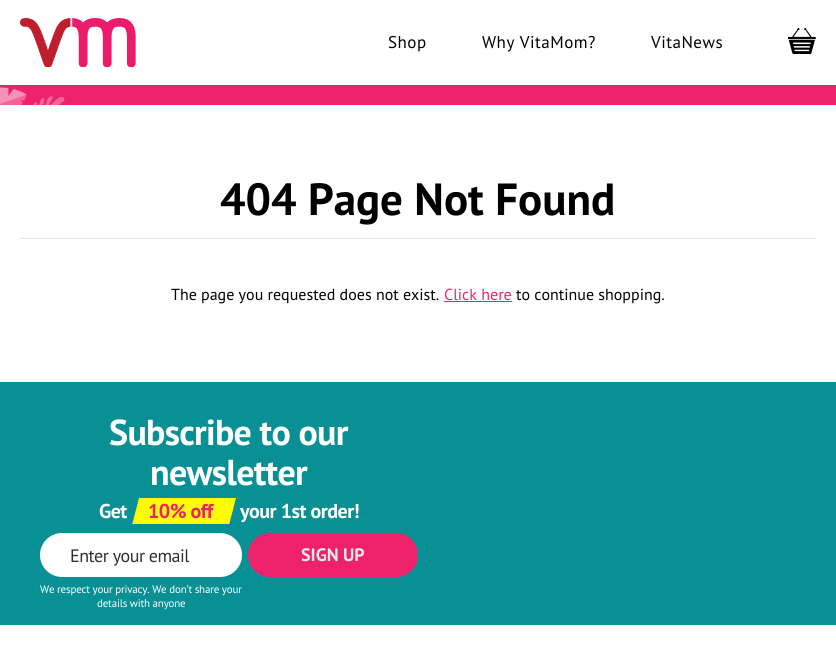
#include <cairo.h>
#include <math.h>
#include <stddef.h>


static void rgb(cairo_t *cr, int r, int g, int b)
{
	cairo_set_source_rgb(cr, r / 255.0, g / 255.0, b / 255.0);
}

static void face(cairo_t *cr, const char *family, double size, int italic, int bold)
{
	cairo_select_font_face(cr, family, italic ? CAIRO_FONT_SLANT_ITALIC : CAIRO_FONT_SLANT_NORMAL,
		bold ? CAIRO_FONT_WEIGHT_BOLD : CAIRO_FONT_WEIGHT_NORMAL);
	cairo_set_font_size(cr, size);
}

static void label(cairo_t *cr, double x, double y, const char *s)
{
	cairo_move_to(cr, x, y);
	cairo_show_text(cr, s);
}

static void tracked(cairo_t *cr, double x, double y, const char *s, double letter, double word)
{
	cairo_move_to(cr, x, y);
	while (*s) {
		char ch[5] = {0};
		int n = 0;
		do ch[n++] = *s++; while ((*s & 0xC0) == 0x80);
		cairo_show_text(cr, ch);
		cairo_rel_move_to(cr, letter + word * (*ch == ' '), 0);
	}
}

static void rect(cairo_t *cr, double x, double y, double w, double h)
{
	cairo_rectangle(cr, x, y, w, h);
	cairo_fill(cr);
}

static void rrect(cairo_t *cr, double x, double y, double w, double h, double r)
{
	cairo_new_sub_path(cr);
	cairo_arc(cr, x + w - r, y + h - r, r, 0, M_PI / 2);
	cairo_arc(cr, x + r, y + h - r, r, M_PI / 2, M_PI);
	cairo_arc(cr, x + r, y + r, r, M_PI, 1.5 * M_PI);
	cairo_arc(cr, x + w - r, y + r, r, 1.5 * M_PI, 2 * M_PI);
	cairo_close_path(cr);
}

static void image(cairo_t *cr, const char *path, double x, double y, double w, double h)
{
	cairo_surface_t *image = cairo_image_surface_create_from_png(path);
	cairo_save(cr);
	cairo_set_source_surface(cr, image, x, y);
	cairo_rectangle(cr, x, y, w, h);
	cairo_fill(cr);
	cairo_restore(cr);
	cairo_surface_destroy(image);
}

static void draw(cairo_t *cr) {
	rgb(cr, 255, 255, 255);
	cairo_paint(cr);
	image(cr, "image0.png", 20, 18, 116, 49);
	face(cr, "PT Sans", 17, 0, 0);
	rgb(cr, 0, 0, 0);
	tracked(cr, 388, 48, "Shop", 0.5, 0);
	tracked(cr, 482, 48, "Why VitaMom?", 0.5, 0);
	tracked(cr, 651, 48, "VitaNews", 0.5, 0);
	image(cr, "image1.png", 788, 28, 28, 26);
	rgb(cr, 238, 34, 106);
	rect(cr, 0, 85, 836, 20);
	image(cr, "image2.png", 0, 87, 65, 18);
	rgb(cr, 229, 229, 229);
	rect(cr, 20, 238, 796, 1);
	face(cr, "PT Sans", 45, 0, 1);
	rgb(cr, 0, 0, 0);
	label(cr, 220, 215, "404 Page Not Found");
	face(cr, "PT Sans", 16, 0, 0);
	label(cr, 171, 300, "The page you requested does not exist.");
	rgb(cr, 238, 34, 106);
	label(cr, 444, 300, "Click here");
	rect(cr, 444, 301, 68, 1);
	rgb(cr, 0, 0, 0);
	label(cr, 516, 300, "to continue shopping.");
	rgb(cr, 9, 144, 149);
	rect(cr, 0, 382, 836, 243);
	face(cr, "PT Sans", 36, 0, 1);
	rgb(cr, 255, 255, 255);
	tracked(cr, 109, 445, "Subscribe to our", -0.7, 0);
	tracked(cr, 150, 485, "newsletter", -0.7, 0);
	face(cr, "PT Sans", 20, 0, 1);
	tracked(cr, 99, 518, "Get", -0.5, 0);
	cairo_save(cr);
	cairo_rectangle(cr, 131, 498, 105, 26);
	cairo_clip(cr);
	rgb(cr, 255, 253, 0);
	cairo_set_fill_rule(cr, CAIRO_FILL_RULE_EVEN_ODD);
	cairo_new_path(cr);
	cairo_move_to(cr, 139, 498);
	cairo_line_to(cr, 236, 498);
	cairo_line_to(cr, 228, 529);
	cairo_line_to(cr, 131, 529);
	cairo_close_path(cr);
	cairo_fill(cr);
	cairo_restore(cr);
	rgb(cr, 238, 34, 106);
	tracked(cr, 148, 518, "10% off", -0.5, 0);
	rgb(cr, 255, 255, 255);
	tracked(cr, 240, 518, "your 1st order!", -0.5, 0);
	rrect(cr, 40, 533, 202, 44, 22);
	cairo_fill(cr);
	face(cr, "PT Sans", 18, 0, 0);
	rgb(cr, 46, 46, 46);
	tracked(cr, 70, 562, "Enter your email", -0.5, 0);
	face(cr, "PT Sans", 11, 0, 0);
	rgb(cr, 255, 255, 255);
	tracked(cr, 40, 593, "We respect your privacy. We don’t share your", -0.2, 0);
	tracked(cr, 97, 607, "details with anyone", -0.2, 0);
	rgb(cr, 238, 34, 106);
	rrect(cr, 248, 533, 170, 44, 22);
	cairo_fill(cr);
	face(cr, "PT Sans", 18, 0, 1);
	rgb(cr, 233, 233, 233);
	label(cr, 301, 561, "SIGN UP");
}

int main(void) {
	cairo_surface_t *surface = cairo_image_surface_create(CAIRO_FORMAT_RGB24, 836, 658);
	cairo_t *cr = cairo_create(surface);
	cairo_font_options_t *options = cairo_font_options_create();
	cairo_font_options_set_hint_metrics(options, CAIRO_HINT_METRICS_OFF);
	cairo_font_options_set_hint_style(options, CAIRO_HINT_STYLE_NONE);
	cairo_set_font_options(cr, options);
	cairo_set_miter_limit(cr, 4);
	draw(cr);
	cairo_surface_write_to_png(surface, "render.png");
	cairo_font_options_destroy(options);
	cairo_destroy(cr);
	cairo_surface_destroy(surface);
	return 0;
}
